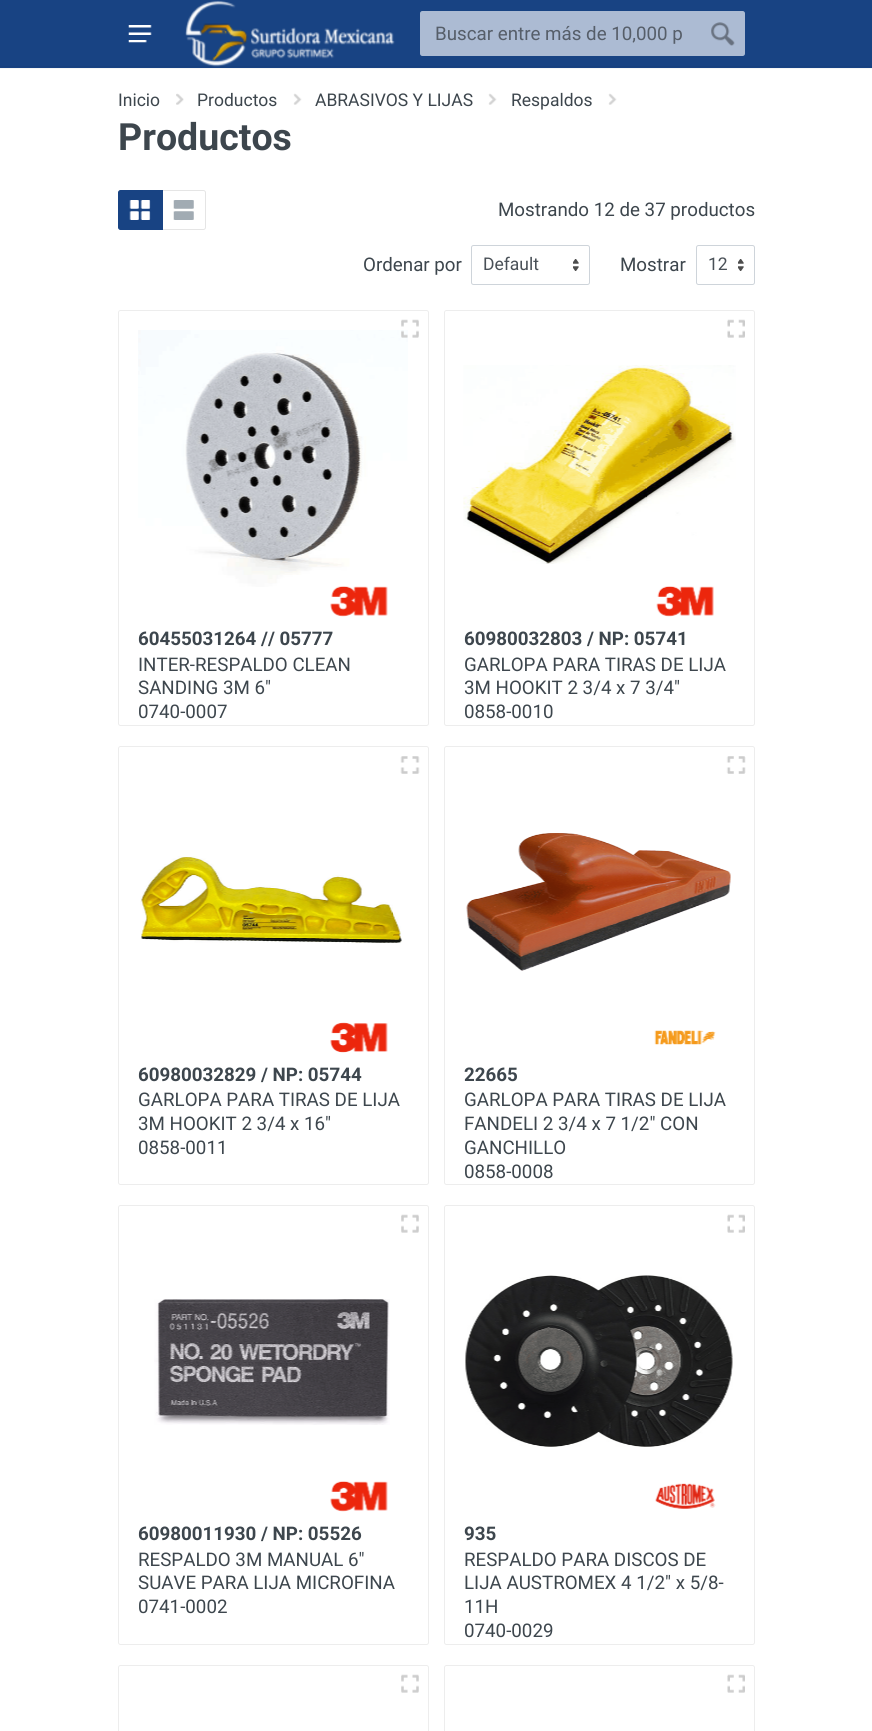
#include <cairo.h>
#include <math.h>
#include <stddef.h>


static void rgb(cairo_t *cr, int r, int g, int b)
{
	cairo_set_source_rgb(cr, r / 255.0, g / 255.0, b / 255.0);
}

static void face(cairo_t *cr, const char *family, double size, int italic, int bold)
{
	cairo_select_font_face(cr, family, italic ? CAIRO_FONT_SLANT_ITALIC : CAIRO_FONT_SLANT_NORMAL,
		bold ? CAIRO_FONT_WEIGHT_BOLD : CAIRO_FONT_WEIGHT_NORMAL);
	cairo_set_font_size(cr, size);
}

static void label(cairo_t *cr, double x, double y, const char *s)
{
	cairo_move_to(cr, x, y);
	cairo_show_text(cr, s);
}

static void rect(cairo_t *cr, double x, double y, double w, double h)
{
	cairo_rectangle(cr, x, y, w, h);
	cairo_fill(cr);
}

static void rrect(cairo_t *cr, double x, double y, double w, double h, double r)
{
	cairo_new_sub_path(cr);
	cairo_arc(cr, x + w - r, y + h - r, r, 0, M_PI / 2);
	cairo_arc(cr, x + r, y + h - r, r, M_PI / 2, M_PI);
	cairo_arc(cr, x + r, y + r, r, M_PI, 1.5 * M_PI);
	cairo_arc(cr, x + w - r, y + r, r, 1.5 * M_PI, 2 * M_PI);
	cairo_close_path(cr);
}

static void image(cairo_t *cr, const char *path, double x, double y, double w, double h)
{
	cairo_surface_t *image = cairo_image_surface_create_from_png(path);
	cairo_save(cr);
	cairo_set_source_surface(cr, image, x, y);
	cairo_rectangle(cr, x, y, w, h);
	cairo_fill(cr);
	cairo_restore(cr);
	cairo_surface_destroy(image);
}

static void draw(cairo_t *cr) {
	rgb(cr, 255, 255, 255);
	cairo_paint(cr);
	rgb(cr, 245, 245, 245);
	cairo_new_path(cr);
	cairo_move_to(cr, 0, 68);
	cairo_line_to(cr, 0, 69);
	cairo_line_to(cr, 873, 69);
	cairo_line_to(cr, 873, 1);
	cairo_line_to(cr, 872, 1);
	cairo_line_to(cr, 872, 68);
	cairo_close_path(cr);
	cairo_fill(cr);
	rgb(cr, 24, 67, 131);
	rect(cr, 0, 0, 872, 68);
	rgb(cr, 23, 64, 126);
	rect(cr, 0, 66, 872, 1);
	image(cr, "image0.png", 128, 25, 24, 18);
	image(cr, "image1.png", 185, 0, 210, 67);
	rgb(cr, 116, 142, 181);
	rrect(cr, 420, 11, 325, 45, 2.5);
	cairo_fill(cr);
	cairo_set_source_rgba(cr, 1, 1, 1, 0.4);
	rrect(cr, 420, 11, 325, 45, 2.5);
	cairo_fill(cr);
	face(cr, "Roboto", 18.75, 0, 0);
	rgb(cr, 86, 94, 105);
	label(cr, 435, 40, "Buscar entre más de 10,000 p");
	image(cr, "image2.png", 711, 22, 24, 24);
	face(cr, "Roboto", 17.5, 0, 0);
	rgb(cr, 61, 70, 77);
	label(cr, 118, 106, "Inicio");
	image(cr, "image3.png", 176, 93, 8, 12);
	label(cr, 197, 106, "Productos");
	image(cr, "image4.png", 293, 93, 9, 12);
	label(cr, 315, 106, "ABRASIVOS Y LIJAS");
	image(cr, "image4.png", 488, 93, 9, 12);
	label(cr, 511, 106, "Respaldos");
	image(cr, "image4.png", 608, 93, 9, 12);
	face(cr, "Roboto", 37.5, 0, 1);
	label(cr, 118, 150, "Productos");
	cairo_new_path(cr);
	cairo_move_to(cr, 161.5, 190.5);
	cairo_line_to(cr, 203.5, 190.5);
	cairo_curve_to(cr, 204.5, 190.5, 205.5, 191.5, 205.5, 192.5);
	cairo_line_to(cr, 205.5, 227.5);
	cairo_curve_to(cr, 205.5, 228.5, 204.5, 229.5, 203.5, 229.5);
	cairo_line_to(cr, 161.5, 229.5);
	cairo_close_path(cr);
	rgb(cr, 229, 229, 229);
	cairo_set_line_width(cr, 1);
	cairo_stroke(cr);
	rgb(cr, 24, 67, 131);
	cairo_new_path(cr);
	cairo_move_to(cr, 120.5, 190.5);
	cairo_line_to(cr, 162.5, 190.5);
	cairo_line_to(cr, 162.5, 229.5);
	cairo_line_to(cr, 120.5, 229.5);
	cairo_curve_to(cr, 119.5, 229.5, 118.5, 228.5, 118.5, 227.5);
	cairo_line_to(cr, 118.5, 192.5);
	cairo_curve_to(cr, 118.5, 191.5, 119.5, 190.5, 120.5, 190.5);
	cairo_close_path(cr);
	cairo_fill_preserve(cr);
	cairo_stroke(cr);
	image(cr, "image5.png", 129, 200, 22, 20);
	image(cr, "image6.png", 173, 200, 21, 20);
	face(cr, "Roboto", 18.75, 0, 0);
	rgb(cr, 61, 70, 77);
	label(cr, 498, 216, "Mostrando 12 de 37 productos");
	label(cr, 363, 271, "Ordenar por");
	image(cr, "image7.png", 573, 259, 6, 12);
	rrect(cr, 471.5, 245.5, 118, 39, 2);
	rgb(cr, 206, 212, 218);
	cairo_stroke(cr);
	face(cr, "Roboto", 17.5, 0, 0);
	rgb(cr, 73, 80, 87);
	label(cr, 483, 270, "Default");
	face(cr, "Roboto", 18.75, 0, 0);
	rgb(cr, 61, 70, 77);
	label(cr, 620, 271, "Mostrar");
	image(cr, "image7.png", 738, 259, 6, 12);
	rrect(cr, 696.5, 245.5, 58, 39, 2);
	rgb(cr, 206, 212, 218);
	cairo_stroke(cr);
	face(cr, "Roboto", 17.5, 0, 0);
	rgb(cr, 73, 80, 87);
	label(cr, 708, 270, "12");
	image(cr, "image8.png", 138, 330, 270, 257);
	image(cr, "image9.png", 330, 586, 58, 31);
	rrect(cr, 118.5, 310.5, 310, 415, 2);
	rgb(cr, 237, 237, 237);
	cairo_stroke(cr);
	image(cr, "image10.png", 401, 319, 18, 19);
	face(cr, "Roboto", 18.75, 0, 1);
	rgb(cr, 61, 70, 77);
	label(cr, 138, 645, "60455031264 // 05777");
	face(cr, "Roboto", 18.75, 0, 0);
	label(cr, 138, 671, "INTER-RESPALDO CLEAN");
	label(cr, 138, 694, "SANDING 3M 6\"");
	label(cr, 138, 718, "0740-0007");
	image(cr, "image12.png", 463, 365, 273, 199);
	image(cr, "image13.png", 656, 586, 58, 31);
	rrect(cr, 444.5, 310.5, 310, 415, 2);
	rgb(cr, 237, 237, 237);
	cairo_stroke(cr);
	image(cr, "image11.png", 727, 319, 18, 19);
	face(cr, "Roboto", 18.75, 0, 1);
	rgb(cr, 61, 70, 77);
	label(cr, 464, 645, "60980032803 / NP: 05741");
	face(cr, "Roboto", 18.75, 0, 0);
	label(cr, 464, 671, "GARLOPA PARA TIRAS DE LIJA");
	label(cr, 464, 694, "3M HOOKIT 2 3/4 x 7 3/4\"");
	label(cr, 464, 718, "0858-0010");
	image(cr, "image15.png", 140, 856, 262, 87);
	image(cr, "image16.png", 330, 1022, 58, 31);
	rrect(cr, 118.5, 746.5, 310, 438, 2);
	rgb(cr, 237, 237, 237);
	cairo_stroke(cr);
	image(cr, "image14.png", 400, 756, 20, 18);
	face(cr, "Roboto", 18.75, 0, 1);
	rgb(cr, 61, 70, 77);
	label(cr, 138, 1081, "60980032829 / NP: 05744");
	face(cr, "Roboto", 18.75, 0, 0);
	label(cr, 138, 1106, "GARLOPA PARA TIRAS DE LIJA");
	label(cr, 138, 1130, "3M HOOKIT 2 3/4 x 16\"");
	label(cr, 138, 1154, "0858-0011");
	image(cr, "image18.png", 466, 833, 265, 138);
	image(cr, "image19.png", 654, 1030, 62, 15);
	rrect(cr, 444.5, 746.5, 310, 438, 2);
	rgb(cr, 237, 237, 237);
	cairo_stroke(cr);
	image(cr, "image17.png", 726, 756, 20, 18);
	face(cr, "Roboto", 18.75, 0, 1);
	rgb(cr, 61, 70, 77);
	label(cr, 464, 1081, "22665");
	face(cr, "Roboto", 18.75, 0, 0);
	label(cr, 464, 1106, "GARLOPA PARA TIRAS DE LIJA");
	label(cr, 464, 1130, "FANDELI 2 3/4 x 7 1/2\" CON");
	label(cr, 464, 1154, "GANCHILLO");
	label(cr, 464, 1178, "0858-0008");
	image(cr, "image21.png", 154, 1299, 236, 126);
	image(cr, "image9.png", 330, 1481, 58, 31);
	rrect(cr, 118.5, 1205.5, 310, 439, 2);
	rgb(cr, 237, 237, 237);
	cairo_stroke(cr);
	image(cr, "image20.png", 401, 1214, 18, 19);
	face(cr, "Roboto", 18.75, 0, 1);
	rgb(cr, 61, 70, 77);
	label(cr, 138, 1540, "60980011930 / NP: 05526");
	face(cr, "Roboto", 18.75, 0, 0);
	label(cr, 138, 1566, "RESPALDO 3M MANUAL 6\"");
	label(cr, 138, 1589, "SUAVE PARA LIJA MICROFINA");
	label(cr, 138, 1613, "0741-0002");
	image(cr, "image22.png", 465, 1275, 268, 172);
	image(cr, "image23.png", 655, 1483, 61, 26);
	rrect(cr, 444.5, 1205.5, 310, 439, 2);
	rgb(cr, 237, 237, 237);
	cairo_stroke(cr);
	image(cr, "image11.png", 727, 1214, 18, 19);
	face(cr, "Roboto", 18.75, 0, 1);
	rgb(cr, 61, 70, 77);
	label(cr, 464, 1540, "935");
	face(cr, "Roboto", 18.75, 0, 0);
	label(cr, 464, 1566, "RESPALDO PARA DISCOS DE");
	label(cr, 464, 1589, "LIJA AUSTROMEX 4 1/2\" x 5/8-");
	label(cr, 464, 1613, "11H");
	label(cr, 464, 1637, "0740-0029");
	rrect(cr, 118.5, 1665.5, 310, 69, 2);
	rgb(cr, 237, 237, 237);
	cairo_stroke(cr);
	image(cr, "image20.png", 401, 1674, 18, 19);
	rrect(cr, 444.5, 1665.5, 310, 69, 2);
	cairo_stroke(cr);
	image(cr, "image11.png", 727, 1674, 18, 19);
}

int main(void) {
	cairo_surface_t *surface = cairo_image_surface_create(CAIRO_FORMAT_RGB24, 872, 1731);
	cairo_t *cr = cairo_create(surface);
	cairo_font_options_t *options = cairo_font_options_create();
	cairo_font_options_set_hint_metrics(options, CAIRO_HINT_METRICS_OFF);
	cairo_font_options_set_hint_style(options, CAIRO_HINT_STYLE_NONE);
	cairo_set_font_options(cr, options);
	cairo_set_miter_limit(cr, 4);
	draw(cr);
	cairo_surface_write_to_png(surface, "render.png");
	cairo_font_options_destroy(options);
	cairo_destroy(cr);
	cairo_surface_destroy(surface);
	return 0;
}
